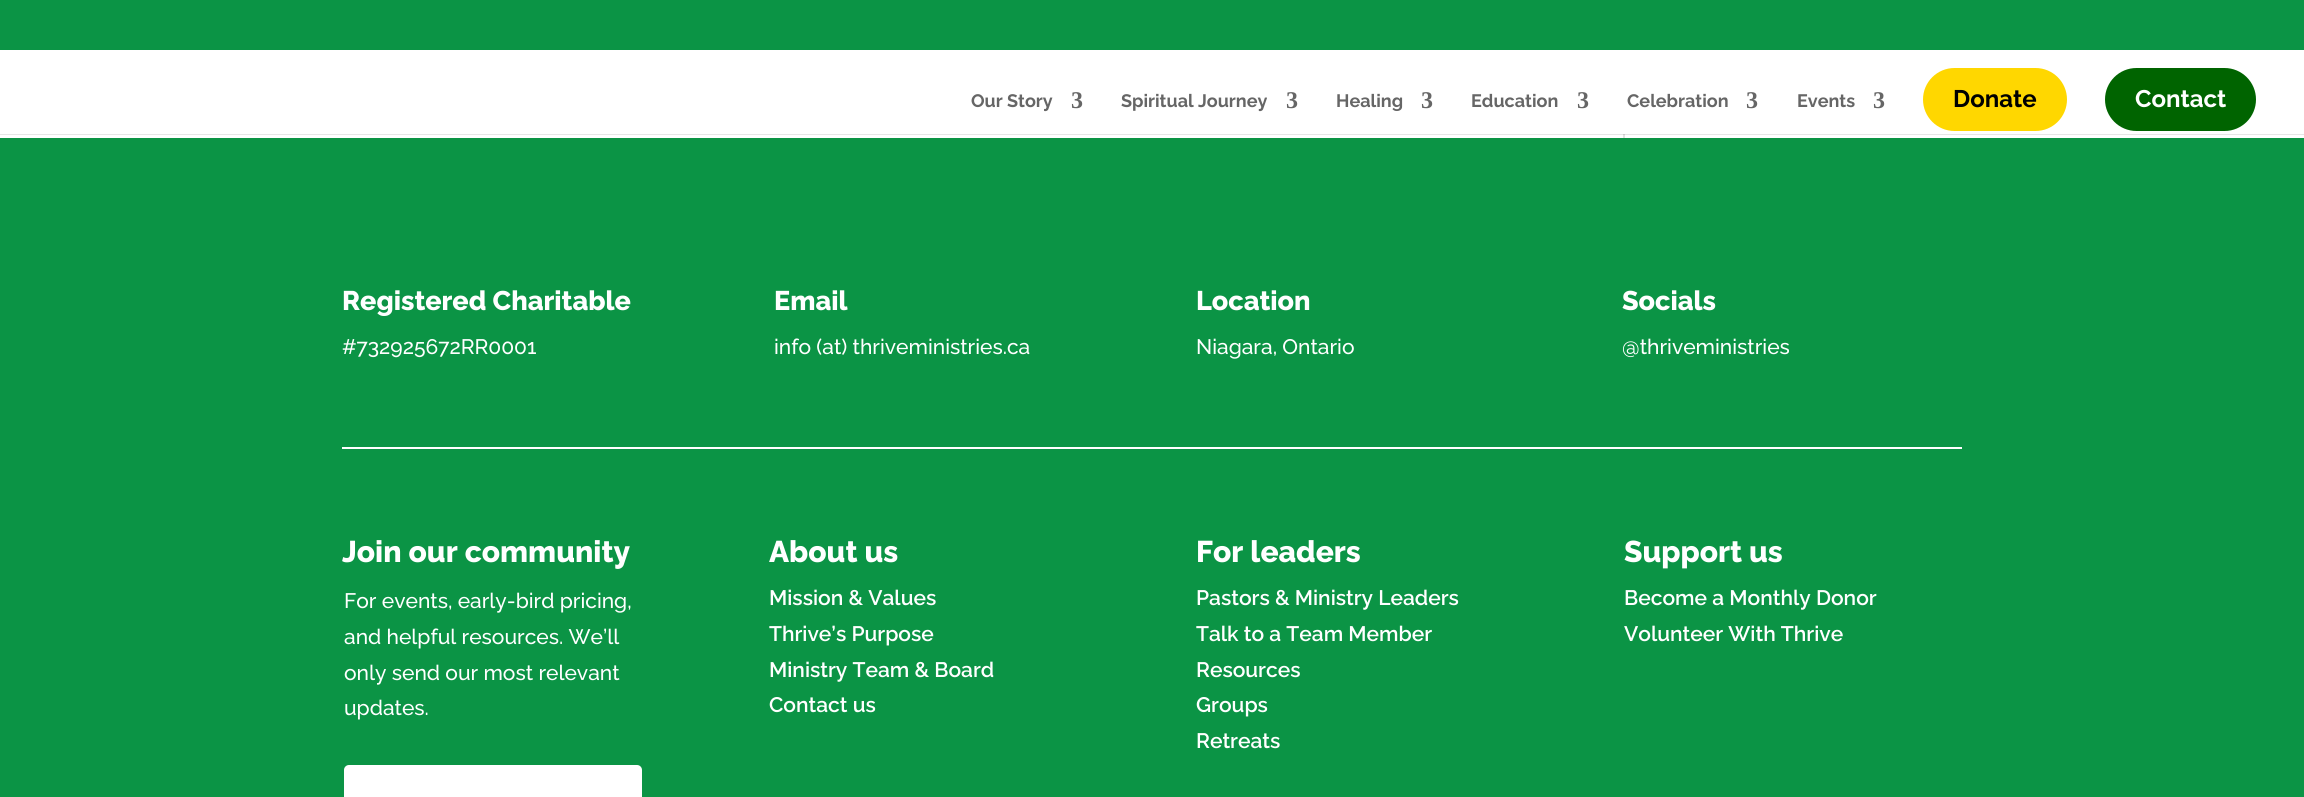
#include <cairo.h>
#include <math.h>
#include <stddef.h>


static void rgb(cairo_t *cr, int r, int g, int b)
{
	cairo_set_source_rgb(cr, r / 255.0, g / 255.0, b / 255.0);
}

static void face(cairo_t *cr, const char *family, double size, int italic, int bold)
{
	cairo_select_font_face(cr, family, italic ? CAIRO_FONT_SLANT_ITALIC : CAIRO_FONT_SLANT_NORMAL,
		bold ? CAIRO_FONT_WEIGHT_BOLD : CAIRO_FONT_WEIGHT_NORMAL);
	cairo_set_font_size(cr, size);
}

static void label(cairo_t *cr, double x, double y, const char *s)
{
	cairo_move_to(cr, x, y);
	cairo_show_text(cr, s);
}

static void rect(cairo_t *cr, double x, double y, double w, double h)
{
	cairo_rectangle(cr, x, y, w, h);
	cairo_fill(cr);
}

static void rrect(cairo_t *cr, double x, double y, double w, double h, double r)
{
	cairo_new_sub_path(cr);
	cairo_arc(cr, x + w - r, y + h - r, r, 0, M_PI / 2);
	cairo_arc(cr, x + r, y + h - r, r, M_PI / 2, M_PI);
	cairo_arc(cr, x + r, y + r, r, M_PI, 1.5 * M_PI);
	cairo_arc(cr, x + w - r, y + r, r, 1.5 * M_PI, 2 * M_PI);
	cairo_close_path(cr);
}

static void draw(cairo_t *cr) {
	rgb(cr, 255, 255, 255);
	cairo_paint(cr);
	rgb(cr, 230, 230, 230);
	rect(cr, 0, 134, 2304, 1);
	rgb(cr, 11, 148, 69);
	rect(cr, 0, 0, 2304, 50);
	face(cr, "Raleway", 18, 0, 1);
	rgb(cr, 102, 102, 102);
	label(cr, 971, 107, "Our Story");
	face(cr, "Liberation Serif", 24, 0, 1);
	label(cr, 1071, 108, "3");
	face(cr, "Raleway", 18, 0, 1);
	label(cr, 1121, 107, "Spiritual Journey");
	face(cr, "Liberation Serif", 24, 0, 1);
	label(cr, 1286, 108, "3");
	face(cr, "Raleway", 18, 0, 1);
	label(cr, 1336, 107, "Healing");
	face(cr, "Liberation Serif", 24, 0, 1);
	label(cr, 1421, 108, "3");
	face(cr, "Raleway", 18, 0, 1);
	label(cr, 1471, 107, "Education");
	face(cr, "Liberation Serif", 24, 0, 1);
	label(cr, 1577, 108, "3");
	face(cr, "Raleway", 18, 0, 1);
	label(cr, 1627, 107, "Celebration");
	face(cr, "Liberation Serif", 24, 0, 1);
	label(cr, 1746, 108, "3");
	face(cr, "Raleway", 18, 0, 1);
	label(cr, 1797, 107, "Events");
	face(cr, "Liberation Serif", 24, 0, 1);
	label(cr, 1873, 108, "3");
	rgb(cr, 255, 215, 0);
	rrect(cr, 1923, 68, 144, 63, 31.5);
	cairo_fill(cr);
	face(cr, "Raleway", 24, 0, 1);
	rgb(cr, 0, 0, 0);
	label(cr, 1953, 107, "Donate");
	rgb(cr, 0, 100, 0);
	rrect(cr, 2105, 68, 151, 63, 31.5);
	cairo_fill(cr);
	rgb(cr, 255, 255, 255);
	label(cr, 2135, 107, "Contact");
	rgb(cr, 226, 226, 226);
	rect(cr, 1623, 135, 2, 3);
	rgb(cr, 203, 203, 203);
	rect(cr, 1623, 134, 2, 1);
	rgb(cr, 11, 148, 69);
	rect(cr, 0, 138, 2304, 659);
	face(cr, "Raleway ExtraBold", 27, 0, 0);
	rgb(cr, 255, 255, 255);
	label(cr, 342, 310, "Registered Charitable");
	face(cr, "Raleway Medium", 21, 0, 0);
	label(cr, 342, 354, "#732925672RR0001");
	face(cr, "Raleway ExtraBold", 27, 0, 0);
	label(cr, 774, 310, "Email");
	face(cr, "Raleway Medium", 21, 0, 0);
	label(cr, 774, 354, "info (at) thriveministries.ca");
	face(cr, "Raleway ExtraBold", 27, 0, 0);
	label(cr, 1196, 310, "Location");
	face(cr, "Raleway Medium", 21, 0, 0);
	label(cr, 1196, 354, "Niagara, Ontario");
	face(cr, "Raleway ExtraBold", 27, 0, 0);
	label(cr, 1622, 310, "Socials");
	face(cr, "Raleway Medium", 21, 0, 0);
	label(cr, 1622, 354, "@thriveministries");
	rect(cr, 342, 447, 1620, 2);
	face(cr, "Raleway ExtraBold", 30, 0, 0);
	label(cr, 342, 562, "Join our community");
	face(cr, "Raleway Medium", 21, 0, 0);
	label(cr, 344, 608, "For events, early-bird pricing,");
	label(cr, 344, 644, "and helpful resources. We’ll");
	label(cr, 344, 680, "only send our most relevant");
	label(cr, 344, 715, "updates.");
	rrect(cr, 344, 765, 298, 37, 5);
	cairo_fill(cr);
	face(cr, "Raleway ExtraBold", 30, 0, 0);
	label(cr, 769, 562, "About us");
	face(cr, "Raleway SemiBold", 21, 0, 0);
	label(cr, 769, 605, "Mission & Values");
	label(cr, 769, 641, "Thrive’s Purpose");
	label(cr, 769, 677, "Ministry Team & Board");
	label(cr, 769, 712, "Contact us");
	face(cr, "Raleway ExtraBold", 30, 0, 0);
	label(cr, 1196, 562, "For leaders");
	face(cr, "Raleway SemiBold", 21, 0, 0);
	label(cr, 1196, 605, "Pastors & Ministry Leaders");
	label(cr, 1196, 641, "Talk to a Team Member");
	label(cr, 1196, 677, "Resources");
	label(cr, 1196, 712, "Groups");
	label(cr, 1196, 748, "Retreats");
	face(cr, "Raleway ExtraBold", 30, 0, 0);
	label(cr, 1624, 562, "Support us");
	face(cr, "Raleway SemiBold", 21, 0, 0);
	label(cr, 1624, 605, "Become a Monthly Donor");
	label(cr, 1624, 641, "Volunteer With Thrive");
}

int main(void) {
	cairo_surface_t *surface = cairo_image_surface_create(CAIRO_FORMAT_RGB24, 2304, 797);
	cairo_t *cr = cairo_create(surface);
	cairo_font_options_t *options = cairo_font_options_create();
	cairo_font_options_set_hint_metrics(options, CAIRO_HINT_METRICS_OFF);
	cairo_font_options_set_hint_style(options, CAIRO_HINT_STYLE_NONE);
	cairo_set_font_options(cr, options);
	cairo_set_miter_limit(cr, 4);
	draw(cr);
	cairo_surface_write_to_png(surface, "render.png");
	cairo_font_options_destroy(options);
	cairo_destroy(cr);
	cairo_surface_destroy(surface);
	return 0;
}
